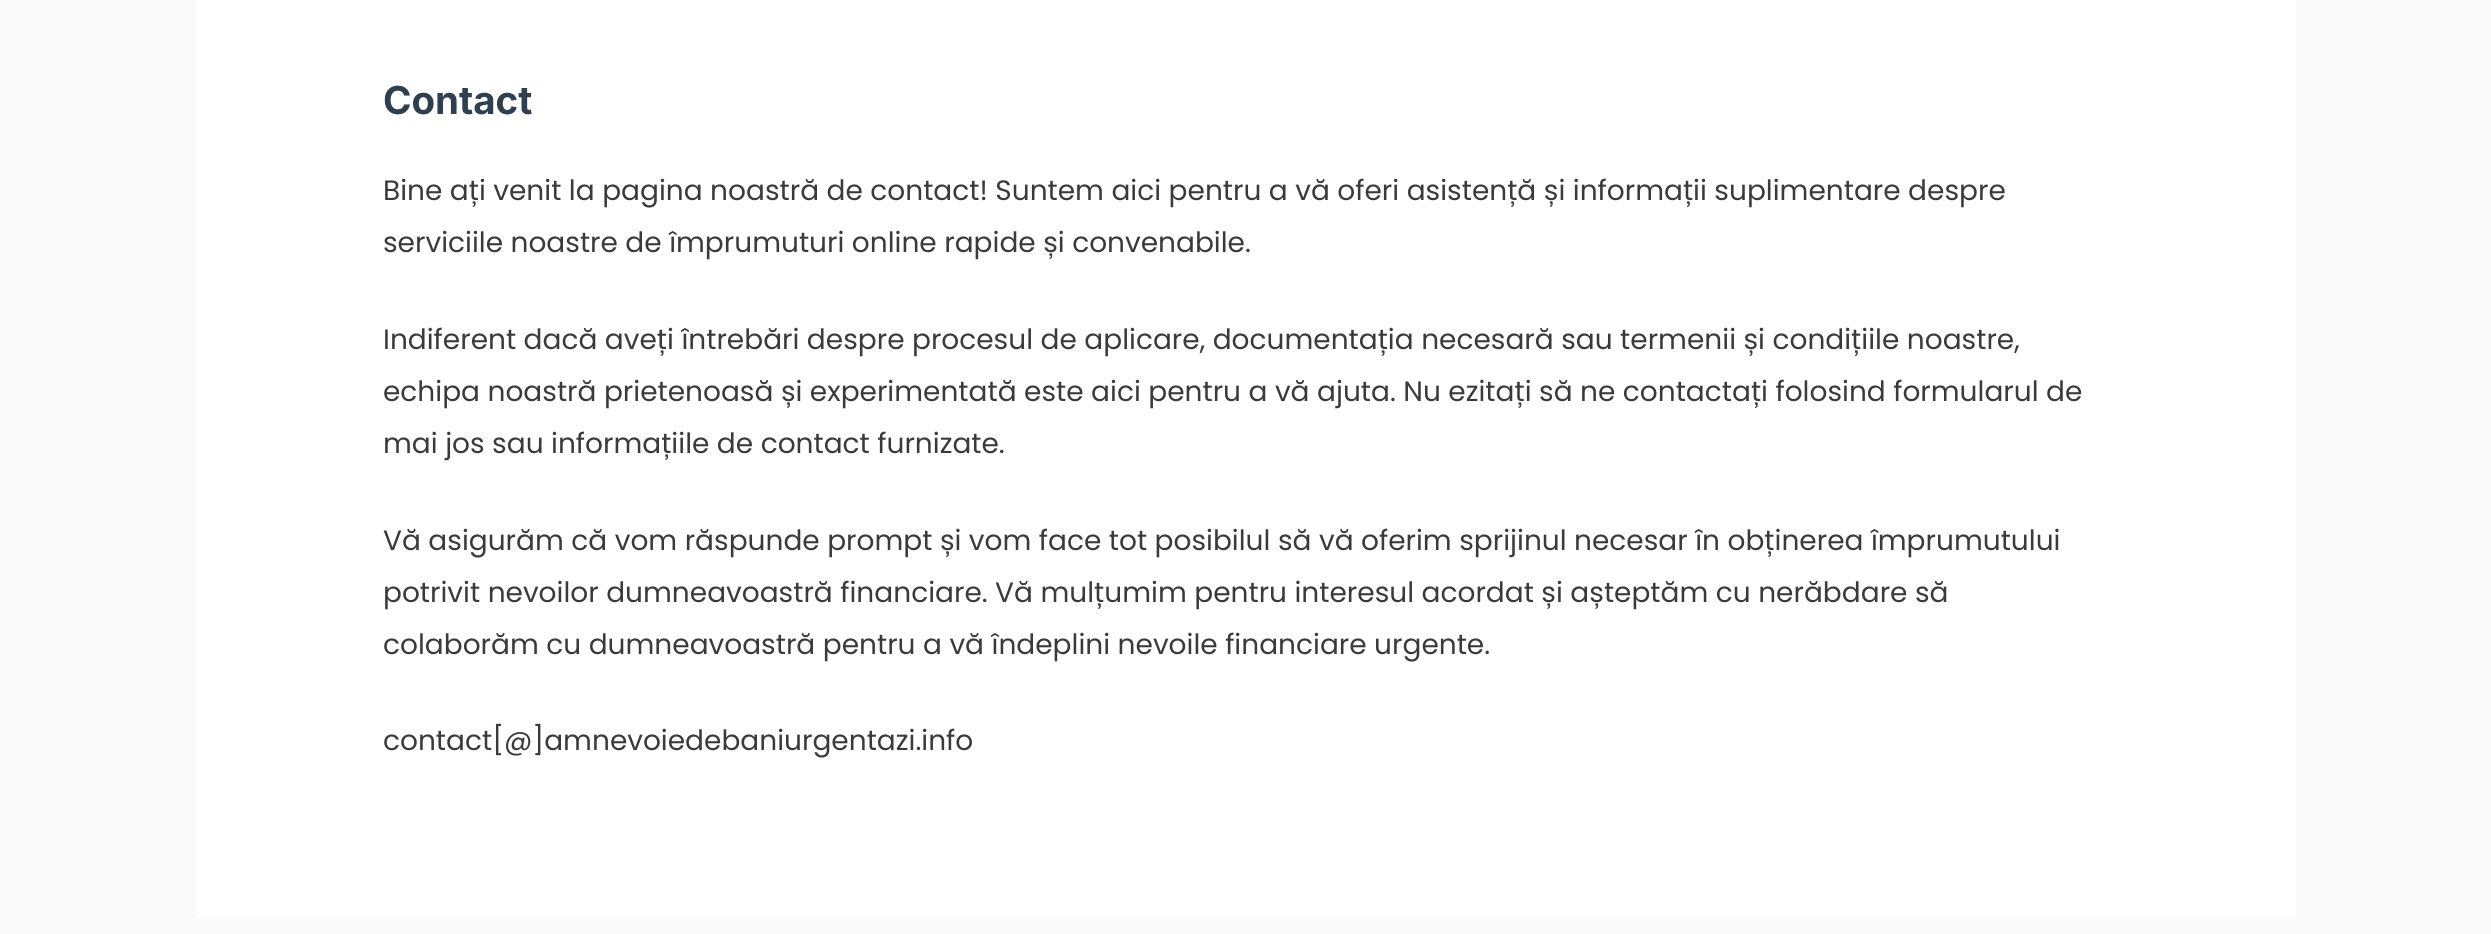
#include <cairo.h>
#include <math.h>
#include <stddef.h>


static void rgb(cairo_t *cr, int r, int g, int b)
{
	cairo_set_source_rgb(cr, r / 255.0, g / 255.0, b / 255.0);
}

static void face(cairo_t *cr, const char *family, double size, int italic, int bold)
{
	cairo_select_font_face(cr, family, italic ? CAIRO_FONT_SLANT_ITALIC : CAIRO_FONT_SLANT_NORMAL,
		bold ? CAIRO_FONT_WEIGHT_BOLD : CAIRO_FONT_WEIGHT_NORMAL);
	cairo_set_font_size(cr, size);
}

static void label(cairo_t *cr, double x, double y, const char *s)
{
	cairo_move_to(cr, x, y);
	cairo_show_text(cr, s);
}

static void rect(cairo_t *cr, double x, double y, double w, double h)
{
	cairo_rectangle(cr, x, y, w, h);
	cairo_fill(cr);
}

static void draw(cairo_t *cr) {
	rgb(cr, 250, 250, 250);
	cairo_paint(cr);
	rgb(cr, 255, 255, 255);
	rect(cr, 196, 0, 2100, 917);
	face(cr, "Inter", 38.5, 0, 1);
	rgb(cr, 47, 63, 80);
	label(cr, 383, 114, "Contact");
	face(cr, "Poppins", 28, 0, 0);
	rgb(cr, 58, 58, 58);
	label(cr, 383, 200, "Bine ați venit la pagina noastră de contact! Suntem aici pentru a vă oferi asistență și informații suplimentare despre");
	label(cr, 383, 252, "serviciile noastre de împrumuturi online rapide și convenabile.");
	label(cr, 383, 349, "Indiferent dacă aveți întrebări despre procesul de aplicare, documentația necesară sau termenii și condițiile noastre,");
	label(cr, 383, 401, "echipa noastră prietenoasă și experimentată este aici pentru a vă ajuta. Nu ezitați să ne contactați folosind formularul de");
	label(cr, 383, 453, "mai jos sau informațiile de contact furnizate.");
	label(cr, 383, 550, "Vă asigurăm că vom răspunde prompt și vom face tot posibilul să vă oferim sprijinul necesar în obținerea împrumutului");
	label(cr, 383, 602, "potrivit nevoilor dumneavoastră financiare. Vă mulțumim pentru interesul acordat și așteptăm cu nerăbdare să");
	label(cr, 383, 654, "colaborăm cu dumneavoastră pentru a vă îndeplini nevoile financiare urgente.");
	label(cr, 383, 750, "contact[@]amnevoiedebaniurgentazi.info");
}

int main(void) {
	cairo_surface_t *surface = cairo_image_surface_create(CAIRO_FORMAT_RGB24, 2491, 934);
	cairo_t *cr = cairo_create(surface);
	cairo_font_options_t *options = cairo_font_options_create();
	cairo_font_options_set_hint_metrics(options, CAIRO_HINT_METRICS_OFF);
	cairo_font_options_set_hint_style(options, CAIRO_HINT_STYLE_NONE);
	cairo_set_font_options(cr, options);
	cairo_set_miter_limit(cr, 4);
	draw(cr);
	cairo_surface_write_to_png(surface, "render.png");
	cairo_font_options_destroy(options);
	cairo_destroy(cr);
	cairo_surface_destroy(surface);
	return 0;
}
